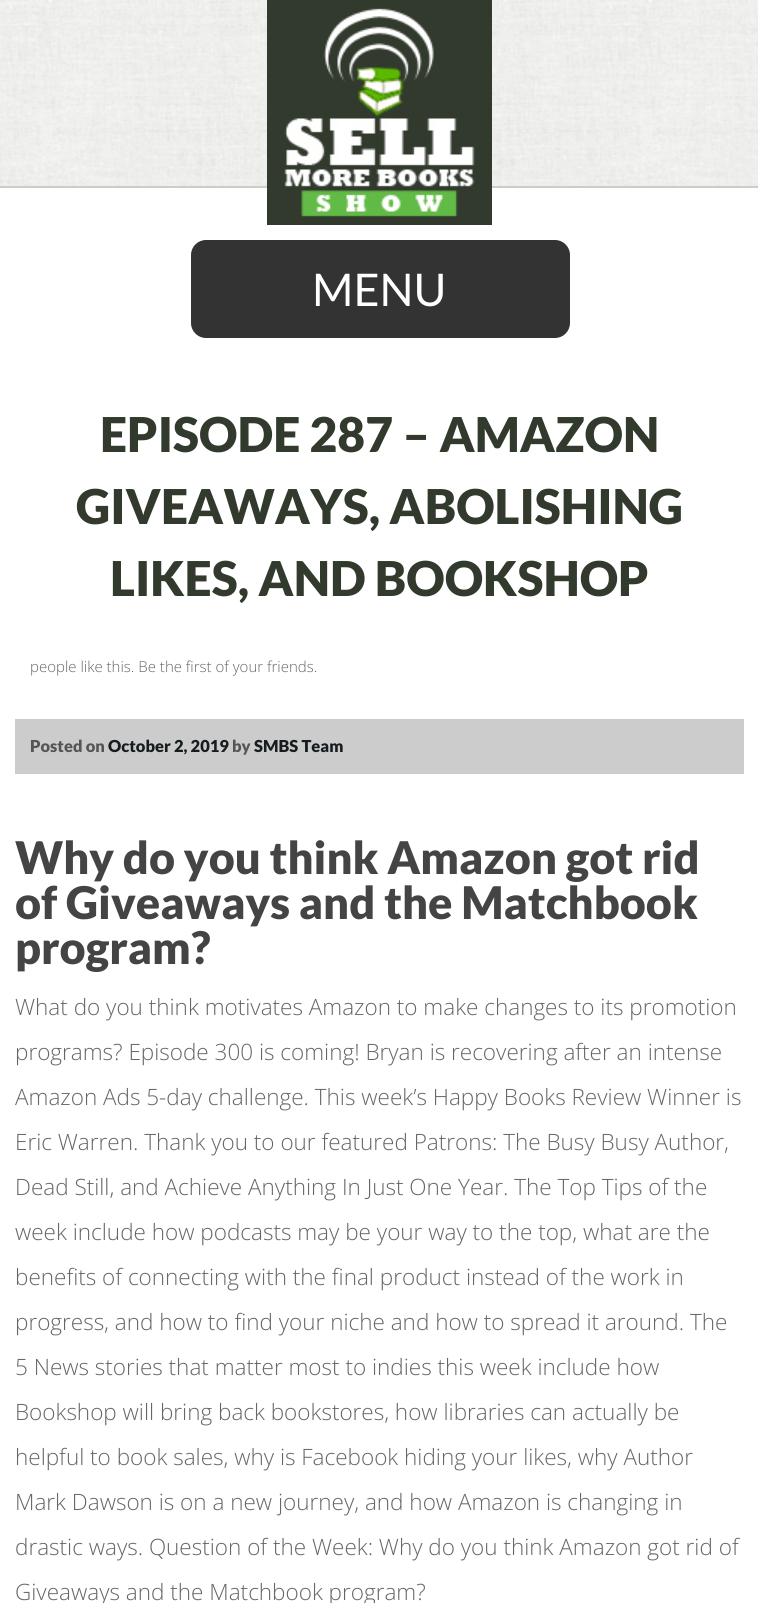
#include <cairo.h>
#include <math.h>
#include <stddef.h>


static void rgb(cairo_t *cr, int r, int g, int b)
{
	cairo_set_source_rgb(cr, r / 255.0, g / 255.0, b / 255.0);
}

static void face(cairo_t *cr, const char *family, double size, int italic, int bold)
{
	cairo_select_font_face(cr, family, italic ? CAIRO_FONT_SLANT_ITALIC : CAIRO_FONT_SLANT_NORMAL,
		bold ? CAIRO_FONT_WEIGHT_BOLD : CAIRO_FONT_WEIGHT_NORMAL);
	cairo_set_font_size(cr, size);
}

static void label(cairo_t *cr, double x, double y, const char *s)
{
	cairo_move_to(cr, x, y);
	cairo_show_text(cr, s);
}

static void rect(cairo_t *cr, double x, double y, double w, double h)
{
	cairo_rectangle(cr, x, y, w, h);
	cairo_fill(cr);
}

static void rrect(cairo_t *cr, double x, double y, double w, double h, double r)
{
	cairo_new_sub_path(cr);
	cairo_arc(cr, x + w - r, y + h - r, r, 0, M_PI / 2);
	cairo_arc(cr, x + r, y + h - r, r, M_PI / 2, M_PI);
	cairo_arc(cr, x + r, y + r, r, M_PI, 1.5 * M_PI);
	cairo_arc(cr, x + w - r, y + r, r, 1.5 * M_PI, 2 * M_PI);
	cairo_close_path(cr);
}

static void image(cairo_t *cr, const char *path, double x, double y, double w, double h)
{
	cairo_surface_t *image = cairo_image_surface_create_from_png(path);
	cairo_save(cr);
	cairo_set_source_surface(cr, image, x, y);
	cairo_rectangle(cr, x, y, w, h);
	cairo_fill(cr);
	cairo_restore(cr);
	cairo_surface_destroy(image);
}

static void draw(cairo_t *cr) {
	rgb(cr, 255, 255, 255);
	cairo_paint(cr);
	image(cr, "image0.png", 0, 0, 758, 186);
	rgb(cr, 204, 204, 204);
	rect(cr, 0, 186, 758, 2);
	image(cr, "image1.png", 267, 0, 225, 225);
	rgb(cr, 51, 51, 51);
	rrect(cr, 191, 240, 379, 98, 15);
	cairo_fill(cr);
	face(cr, "Lato", 45, 0, 0);
	rgb(cr, 255, 255, 255);
	label(cr, 312, 306, "MENU");
	face(cr, "Lato Black", 48, 0, 0);
	rgb(cr, 50, 58, 46);
	label(cr, 100, 452, "EPISODE 287 – AMAZON");
	label(cr, 76, 524, "GIVEAWAYS, ABOLISHING");
	label(cr, 110, 596, "LIKES, AND BOOKSHOP");
	face(cr, "Open Sans Light", 15, 0, 0);
	rgb(cr, 102, 102, 102);
	label(cr, 30, 672, "people like this. Be the first of your friends.");
	rgb(cr, 204, 204, 204);
	rect(cr, 15, 719, 729, 55);
	face(cr, "Lato Black", 16.5, 0, 0);
	rgb(cr, 85, 85, 85);
	label(cr, 30, 752, "Posted on");
	rgb(cr, 23, 28, 31);
	label(cr, 108, 752, "October 2, 2019");
	rgb(cr, 85, 85, 85);
	label(cr, 232, 752, "by");
	rgb(cr, 23, 28, 31);
	label(cr, 254, 752, "SMBS Team");
	face(cr, "Lato Black", 45, 0, 0);
	rgb(cr, 68, 68, 68);
	label(cr, 15, 874, "Why do you think Amazon got rid");
	label(cr, 15, 919, "of Giveaways and the Matchbook");
	label(cr, 15, 964, "program?");
	face(cr, "Open Sans Light", 22.5, 0, 0);
	rgb(cr, 102, 102, 102);
	label(cr, 15, 1015, "What do you think motivates Amazon to make changes to its promotion");
	label(cr, 15, 1060, "programs? Episode 300 is coming! Bryan is recovering after an intense");
	label(cr, 15, 1105, "Amazon Ads 5-day challenge. This week’s Happy Books Review Winner is");
	label(cr, 15, 1150, "Eric Warren. Thank you to our featured Patrons: The Busy Busy Author,");
	label(cr, 15, 1195, "Dead Still, and Achieve Anything In Just One Year. The Top Tips of the");
	label(cr, 15, 1240, "week include how podcasts may be your way to the top, what are the");
	label(cr, 15, 1285, "benefits of connecting with the final product instead of the work in");
	label(cr, 15, 1330, "progress, and how to find your niche and how to spread it around. The");
	label(cr, 15, 1375, "5 News stories that matter most to indies this week include how");
	label(cr, 15, 1420, "Bookshop will bring back bookstores, how libraries can actually be");
	label(cr, 15, 1465, "helpful to book sales, why is Facebook hiding your likes, why Author");
	label(cr, 15, 1510, "Mark Dawson is on a new journey, and how Amazon is changing in");
	label(cr, 15, 1555, "drastic ways. Question of the Week: Why do you think Amazon got rid of");
	label(cr, 15, 1600, "Giveaways and the Matchbook program?");
}

int main(void) {
	cairo_surface_t *surface = cairo_image_surface_create(CAIRO_FORMAT_RGB24, 758, 1603);
	cairo_t *cr = cairo_create(surface);
	cairo_font_options_t *options = cairo_font_options_create();
	cairo_font_options_set_hint_metrics(options, CAIRO_HINT_METRICS_OFF);
	cairo_font_options_set_hint_style(options, CAIRO_HINT_STYLE_NONE);
	cairo_set_font_options(cr, options);
	cairo_set_miter_limit(cr, 4);
	draw(cr);
	cairo_surface_write_to_png(surface, "render.png");
	cairo_font_options_destroy(options);
	cairo_destroy(cr);
	cairo_surface_destroy(surface);
	return 0;
}
